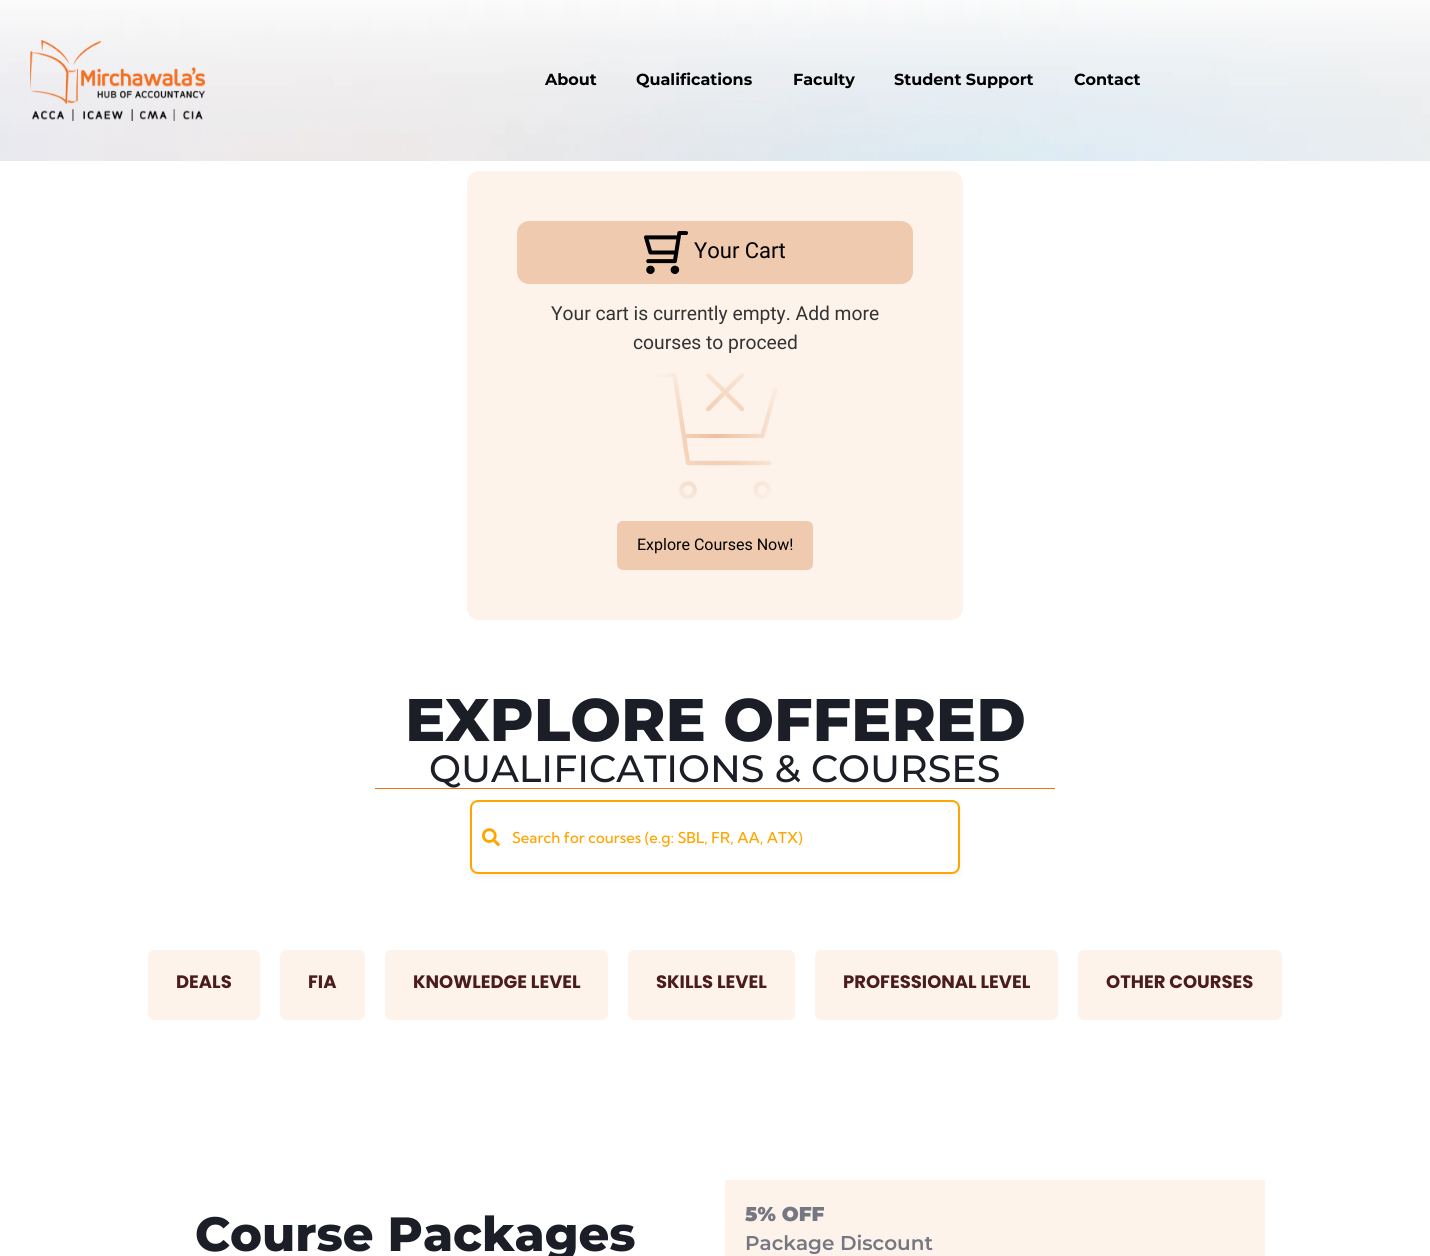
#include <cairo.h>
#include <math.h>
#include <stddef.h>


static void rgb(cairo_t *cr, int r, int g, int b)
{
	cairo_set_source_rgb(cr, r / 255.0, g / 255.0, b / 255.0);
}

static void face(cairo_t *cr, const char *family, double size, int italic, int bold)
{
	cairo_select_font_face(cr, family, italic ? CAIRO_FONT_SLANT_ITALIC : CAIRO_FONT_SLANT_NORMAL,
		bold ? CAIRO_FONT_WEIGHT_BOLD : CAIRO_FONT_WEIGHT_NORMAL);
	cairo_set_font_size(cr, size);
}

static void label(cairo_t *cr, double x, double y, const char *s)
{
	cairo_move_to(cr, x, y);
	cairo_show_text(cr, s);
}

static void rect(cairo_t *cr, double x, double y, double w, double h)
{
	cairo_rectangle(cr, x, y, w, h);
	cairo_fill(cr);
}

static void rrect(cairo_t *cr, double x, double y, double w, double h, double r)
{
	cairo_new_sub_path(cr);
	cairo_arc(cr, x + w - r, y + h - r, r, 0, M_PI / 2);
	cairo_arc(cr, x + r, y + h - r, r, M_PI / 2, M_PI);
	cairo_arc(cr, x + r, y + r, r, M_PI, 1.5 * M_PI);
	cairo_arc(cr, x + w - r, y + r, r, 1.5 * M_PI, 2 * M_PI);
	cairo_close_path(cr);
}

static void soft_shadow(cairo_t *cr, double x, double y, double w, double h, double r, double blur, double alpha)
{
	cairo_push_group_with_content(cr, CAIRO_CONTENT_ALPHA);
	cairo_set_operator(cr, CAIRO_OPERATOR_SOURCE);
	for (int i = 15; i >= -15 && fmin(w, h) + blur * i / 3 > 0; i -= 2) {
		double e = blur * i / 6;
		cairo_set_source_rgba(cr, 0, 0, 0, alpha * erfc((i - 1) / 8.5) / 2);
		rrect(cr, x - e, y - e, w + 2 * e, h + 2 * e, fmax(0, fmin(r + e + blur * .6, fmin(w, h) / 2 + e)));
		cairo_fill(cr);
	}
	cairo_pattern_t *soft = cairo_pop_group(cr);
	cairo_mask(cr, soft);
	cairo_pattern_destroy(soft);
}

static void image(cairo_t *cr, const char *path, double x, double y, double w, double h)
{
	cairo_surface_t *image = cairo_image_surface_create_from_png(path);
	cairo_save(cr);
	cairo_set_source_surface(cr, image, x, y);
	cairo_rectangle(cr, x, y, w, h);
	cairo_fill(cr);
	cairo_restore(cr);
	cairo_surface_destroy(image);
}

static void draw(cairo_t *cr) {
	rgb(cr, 255, 255, 255);
	cairo_paint(cr);
	image(cr, "image0.png", 0, 0, 1430, 161);
	image(cr, "image1.png", 30, 40, 175, 81);
	face(cr, "Montserrat", 16, 0, 1);
	rgb(cr, 0, 0, 0);
	label(cr, 545, 85, "About");
	label(cr, 636, 85, "Qualifications");
	label(cr, 793, 85, "Faculty");
	label(cr, 894, 85, "Student Support");
	label(cr, 1074, 85, "Contact");
	rgb(cr, 253, 243, 235);
	rrect(cr, 467, 171, 496, 449, 12);
	cairo_fill(cr);
	rgb(cr, 240, 202, 174);
	rrect(cr, 517, 221, 396, 63, 12);
	cairo_fill(cr);
	image(cr, "image2.png", 644, 231, 44, 43);
	face(cr, "Roboto", 22, 0, 0);
	rgb(cr, 0, 0, 0);
	label(cr, 694, 258, "Your Cart");
	face(cr, "Roboto", 19.25, 0, 0);
	rgb(cr, 51, 51, 51);
	label(cr, 551, 320, "Your cart is currently empty. Add more");
	label(cr, 633, 349, "courses to proceed");
	image(cr, "image3.png", 656, 373, 122, 126);
	rgb(cr, 240, 202, 174);
	rrect(cr, 617, 521, 196, 49, 6);
	cairo_fill(cr);
	face(cr, "Roboto", 16, 0, 0);
	rgb(cr, 0, 0, 0);
	label(cr, 637, 550, "Explore Courses Now!");
	face(cr, "Montserrat ExtraBold", 60, 0, 0);
	rgb(cr, 28, 30, 39);
	label(cr, 405, 741, "EXPLORE OFFERED");
	rgb(cr, 246, 111, 14);
	rect(cr, 375, 788, 680, 1);
	face(cr, "Montserrat Medium", 38, 0, 0);
	rgb(cr, 28, 30, 39);
	label(cr, 429, 782, "QUALIFICATIONS & COURSES");
	rgb(cr, 0, 0, 0);
	soft_shadow(cr, 470, 803, 490, 74, 8, 3, 0.05);
	rgb(cr, 255, 255, 255);
	rrect(cr, 471, 801, 488, 72, 7);
	cairo_fill_preserve(cr);
	rgb(cr, 255, 165, 0);
	cairo_stroke(cr);
	image(cr, "image4.png", 482, 828, 18, 19);
	face(cr, "Kumbh Sans Medium", 15, 0, 0);
	label(cr, 512, 843, "Search for courses (e.g: SBL, FR, AA, ATX)");
	rgb(cr, 253, 243, 235);
	rrect(cr, 148, 950, 112, 70, 6);
	cairo_fill(cr);
	face(cr, "Poppins", 18, 0, 1);
	rgb(cr, 75, 28, 28);
	label(cr, 176, 988, "DEALS");
	rgb(cr, 253, 243, 235);
	rrect(cr, 280, 950, 85, 70, 6);
	cairo_fill(cr);
	rgb(cr, 75, 28, 28);
	label(cr, 308, 988, "FIA");
	rgb(cr, 253, 243, 235);
	rrect(cr, 385, 950, 223, 70, 6);
	cairo_fill(cr);
	rgb(cr, 75, 28, 28);
	label(cr, 413, 988, "KNOWLEDGE LEVEL");
	rgb(cr, 253, 243, 235);
	rrect(cr, 628, 950, 167, 70, 6);
	cairo_fill(cr);
	rgb(cr, 75, 28, 28);
	label(cr, 656, 988, "SKILLS LEVEL");
	rgb(cr, 253, 243, 235);
	rrect(cr, 815, 950, 243, 70, 6);
	cairo_fill(cr);
	rgb(cr, 75, 28, 28);
	label(cr, 843, 988, "PROFESSIONAL LEVEL");
	rgb(cr, 253, 243, 235);
	rrect(cr, 1078, 950, 204, 70, 6);
	cairo_fill(cr);
	rgb(cr, 75, 28, 28);
	label(cr, 1106, 988, "OTHER COURSES");
	face(cr, "Montserrat ExtraBold", 48, 0, 0);
	rgb(cr, 28, 30, 39);
	label(cr, 195, 1251, "Course Packages");
	rgb(cr, 253, 243, 235);
	rect(cr, 725, 1180, 540, 76);
	face(cr, "Montserrat Black", 20, 0, 0);
	rgb(cr, 117, 119, 131);
	label(cr, 745, 1221, "5% OFF");
	face(cr, "Montserrat SemiBold", 20, 0, 0);
	label(cr, 745, 1250, "Package Discount");
}

int main(void) {
	cairo_surface_t *surface = cairo_image_surface_create(CAIRO_FORMAT_RGB24, 1430, 1256);
	cairo_t *cr = cairo_create(surface);
	cairo_font_options_t *options = cairo_font_options_create();
	cairo_font_options_set_hint_metrics(options, CAIRO_HINT_METRICS_OFF);
	cairo_font_options_set_hint_style(options, CAIRO_HINT_STYLE_NONE);
	cairo_set_font_options(cr, options);
	cairo_set_miter_limit(cr, 4);
	draw(cr);
	cairo_surface_write_to_png(surface, "render.png");
	cairo_font_options_destroy(options);
	cairo_destroy(cr);
	cairo_surface_destroy(surface);
	return 0;
}
